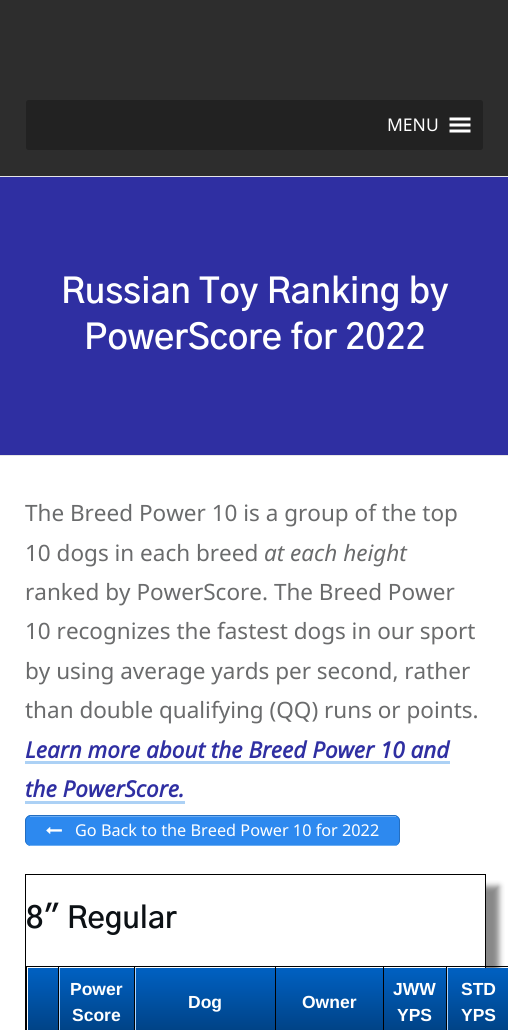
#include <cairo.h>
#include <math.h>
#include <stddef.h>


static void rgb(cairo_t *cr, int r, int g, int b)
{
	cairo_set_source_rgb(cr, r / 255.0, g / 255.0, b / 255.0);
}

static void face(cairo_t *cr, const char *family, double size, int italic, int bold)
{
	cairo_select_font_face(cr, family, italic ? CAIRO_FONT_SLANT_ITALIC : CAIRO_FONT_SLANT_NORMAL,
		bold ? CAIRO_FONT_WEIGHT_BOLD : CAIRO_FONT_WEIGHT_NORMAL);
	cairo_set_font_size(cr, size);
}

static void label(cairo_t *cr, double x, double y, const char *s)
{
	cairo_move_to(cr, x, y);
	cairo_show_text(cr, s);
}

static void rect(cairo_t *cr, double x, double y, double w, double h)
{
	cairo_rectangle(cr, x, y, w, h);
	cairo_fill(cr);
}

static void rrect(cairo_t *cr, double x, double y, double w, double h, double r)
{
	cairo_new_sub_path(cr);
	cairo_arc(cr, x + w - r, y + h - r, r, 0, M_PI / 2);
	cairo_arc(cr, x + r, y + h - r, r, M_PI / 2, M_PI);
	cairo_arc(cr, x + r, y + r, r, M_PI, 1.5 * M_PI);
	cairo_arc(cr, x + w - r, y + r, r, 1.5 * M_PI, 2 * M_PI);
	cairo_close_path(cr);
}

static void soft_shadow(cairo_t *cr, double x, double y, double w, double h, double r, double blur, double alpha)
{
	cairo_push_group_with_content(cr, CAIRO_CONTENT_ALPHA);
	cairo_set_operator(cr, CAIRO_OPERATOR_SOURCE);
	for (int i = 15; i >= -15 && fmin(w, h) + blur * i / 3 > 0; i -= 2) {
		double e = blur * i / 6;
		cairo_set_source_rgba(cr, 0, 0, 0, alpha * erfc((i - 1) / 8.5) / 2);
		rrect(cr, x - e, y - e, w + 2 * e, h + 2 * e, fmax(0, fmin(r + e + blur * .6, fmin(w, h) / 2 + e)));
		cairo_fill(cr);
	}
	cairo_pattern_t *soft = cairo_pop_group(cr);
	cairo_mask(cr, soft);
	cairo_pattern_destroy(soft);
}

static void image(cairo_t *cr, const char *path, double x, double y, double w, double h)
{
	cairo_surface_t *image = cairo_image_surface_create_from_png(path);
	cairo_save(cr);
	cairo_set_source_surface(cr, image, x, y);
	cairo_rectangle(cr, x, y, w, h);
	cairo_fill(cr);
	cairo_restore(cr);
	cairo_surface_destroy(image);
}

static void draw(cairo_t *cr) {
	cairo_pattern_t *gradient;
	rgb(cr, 255, 255, 255);
	cairo_paint(cr);
	rgb(cr, 45, 45, 45);
	rect(cr, 0, 0, 508, 176);
	rgb(cr, 34, 34, 34);
	rrect(cr, 26, 100, 457, 50, 2.5);
	cairo_fill(cr);
	face(cr, "Noto Sans", 17.5, 0, 0);
	rgb(cr, 255, 255, 255);
	label(cr, 387, 131, "MENU");
	image(cr, "image0.png", 449, 117, 22, 16);
	rgb(cr, 47, 47, 162);
	rect(cr, 0, 177, 508, 278);
	rgb(cr, 230, 230, 230);
	rect(cr, 0, 176, 508, 1);
	rect(cr, 0, 455, 508, 1);
	face(cr, "Gothic A1 SemiBold", 35, 0, 0);
	rgb(cr, 255, 255, 255);
	label(cr, 61, 303, "Russian Toy Ranking by");
	label(cr, 84, 349, "PowerScore for 2022");
	face(cr, "Noto Sans", 22.5, 0, 0);
	rgb(cr, 106, 107, 108);
	label(cr, 25, 521, "The Breed Power 10 is a group of the top");
	label(cr, 25, 561, "10 dogs in each breed");
	face(cr, "Noto Sans", 22.5, 1, 0);
	label(cr, 264, 561, "at each height");
	face(cr, "Noto Sans", 22.5, 0, 0);
	label(cr, 25, 600, "ranked by PowerScore. The Breed Power");
	label(cr, 25, 639, "10 recognizes the fastest dogs in our sport");
	label(cr, 25, 679, "by using average yards per second, rather");
	label(cr, 25, 718, "than double qualifying (QQ) runs or points.");
	face(cr, "Noto Sans", 22.5, 1, 1);
	rgb(cr, 47, 47, 162);
	label(cr, 25, 758, "Learn more about the Breed Power 10 and");
	rgb(cr, 172, 209, 245);
	rect(cr, 25, 761, 425, 3);
	rgb(cr, 47, 47, 162);
	label(cr, 25, 797, "the PowerScore.");
	rgb(cr, 172, 209, 245);
	rect(cr, 25, 801, 160, 3);
	rgb(cr, 45, 137, 239);
	rrect(cr, 25, 815, 375, 31, 6);
	cairo_fill(cr);
	cairo_save(cr);
	rrect(cr, 25, 815, 375, 31, 6);
	cairo_clip(cr);
	cairo_set_source_rgba(cr, 0.184, 0.545, 0.906, 0.4);
	rect(cr, 25, 844, 375, 2);
	cairo_restore(cr);
	rgb(cr, 36, 110, 192);
	cairo_set_fill_rule(cr, CAIRO_FILL_RULE_EVEN_ODD);
	cairo_new_path(cr);
	cairo_move_to(cr, 31, 815);
	cairo_line_to(cr, 394, 815);
	cairo_curve_to(cr, 397, 815, 400, 818, 400, 821);
	cairo_line_to(cr, 400, 840);
	cairo_curve_to(cr, 400, 843, 397, 846, 394, 846);
	cairo_line_to(cr, 31, 846);
	cairo_curve_to(cr, 28, 846, 25, 843, 25, 840);
	cairo_line_to(cr, 25, 821);
	cairo_curve_to(cr, 25, 818, 28, 815, 31, 815);
	cairo_close_path(cr);
	cairo_move_to(cr, 31, 816);
	cairo_line_to(cr, 394, 816);
	cairo_curve_to(cr, 397, 816, 399, 818, 399, 821);
	cairo_line_to(cr, 399, 840);
	cairo_curve_to(cr, 399, 843, 397, 846, 394, 846);
	cairo_line_to(cr, 31, 846);
	cairo_curve_to(cr, 28, 846, 26, 843, 26, 840);
	cairo_line_to(cr, 26, 821);
	cairo_curve_to(cr, 26, 818, 28, 816, 31, 816);
	cairo_close_path(cr);
	cairo_fill(cr);
	rgb(cr, 108, 173, 244);
	rect(cr, 30, 816, 366, 1);
	rect(cr, 30, 845, 366, 1);
	image(cr, "image1.png", 46, 827, 16, 7);
	face(cr, "Noto Sans", 16.25, 0, 0);
	rgb(cr, 255, 255, 255);
	label(cr, 75, 836, "Go Back to the Breed Power 10 for 2022");
	cairo_save(cr);
	cairo_set_fill_rule(cr, CAIRO_FILL_RULE_WINDING);
	cairo_rectangle(cr, 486, 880, 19, 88);
	cairo_clip(cr);
	rgb(cr, 136, 136, 136);
	soft_shadow(cr, 38, 886, 461, 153, 0, 3, 1);
	cairo_restore(cr);
	cairo_rectangle(cr, 25.5, 874.5, 460, 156);
	rgb(cr, 0, 0, 0);
	cairo_set_line_width(cr, 1);
	cairo_stroke(cr);
	face(cr, "Gothic A1 SemiBold", 30, 0, 0);
	rgb(cr, 12, 17, 21);
	label(cr, 26, 928, "8″ Regular");
	rgb(cr, 0, 0, 0);
	rect(cr, 26, 966, 482, 1);
	rect(cr, 26, 966, 1, 64);
	rgb(cr, 170, 212, 255);
	rect(cr, 59, 968, 389, 62);
	gradient = cairo_pattern_create_linear(28, 968, 28, 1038);
	cairo_pattern_add_color_stop_rgba(gradient, 0.05, 0, 0.373, 0.749, 1);
	cairo_pattern_add_color_stop_rgba(gradient, 1, 0, 0.247, 0.498, 1);
	cairo_set_source(cr, gradient);
	cairo_pattern_destroy(gradient);
	rect(cr, 28, 968, 30, 62);
	gradient = cairo_pattern_create_linear(60, 968, 60, 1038);
	cairo_pattern_add_color_stop_rgba(gradient, 0.05, 0, 0.373, 0.749, 1);
	cairo_pattern_add_color_stop_rgba(gradient, 1, 0, 0.247, 0.498, 1);
	cairo_set_source(cr, gradient);
	cairo_pattern_destroy(gradient);
	rect(cr, 60, 968, 74, 62);
	rgb(cr, 0, 0, 0);
	rect(cr, 58, 966, 1, 64);
	face(cr, "Liberation Sans", 17.5, 0, 1);
	rgb(cr, 255, 255, 255);
	label(cr, 70, 995, "Power");
	label(cr, 72, 1021, "Score");
	gradient = cairo_pattern_create_linear(136, 968, 136, 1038);
	cairo_pattern_add_color_stop_rgba(gradient, 0.05, 0, 0.373, 0.749, 1);
	cairo_pattern_add_color_stop_rgba(gradient, 1, 0, 0.247, 0.498, 1);
	cairo_set_source(cr, gradient);
	cairo_pattern_destroy(gradient);
	rect(cr, 136, 968, 139, 62);
	rgb(cr, 0, 0, 0);
	rect(cr, 134, 966, 1, 64);
	rgb(cr, 255, 255, 255);
	label(cr, 188, 1008, "Dog");
	gradient = cairo_pattern_create_linear(276, 968, 276, 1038);
	cairo_pattern_add_color_stop_rgba(gradient, 0.05, 0, 0.373, 0.749, 1);
	cairo_pattern_add_color_stop_rgba(gradient, 1, 0, 0.247, 0.498, 1);
	cairo_set_source(cr, gradient);
	cairo_pattern_destroy(gradient);
	rect(cr, 276, 968, 107, 62);
	rgb(cr, 0, 0, 0);
	rect(cr, 275, 966, 1, 64);
	rgb(cr, 255, 255, 255);
	label(cr, 302, 1008, "Owner");
	gradient = cairo_pattern_create_linear(384, 968, 384, 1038);
	cairo_pattern_add_color_stop_rgba(gradient, 0.05, 0, 0.373, 0.749, 1);
	cairo_pattern_add_color_stop_rgba(gradient, 1, 0, 0.247, 0.498, 1);
	cairo_set_source(cr, gradient);
	cairo_pattern_destroy(gradient);
	rect(cr, 384, 968, 62, 62);
	rgb(cr, 0, 0, 0);
	rect(cr, 383, 966, 1, 64);
	rgb(cr, 255, 255, 255);
	label(cr, 393, 995, "JWW");
	label(cr, 397, 1021, "YPS");
	gradient = cairo_pattern_create_linear(448, 968, 448, 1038);
	cairo_pattern_add_color_stop_rgba(gradient, 0.05, 0, 0.373, 0.749, 1);
	cairo_pattern_add_color_stop_rgba(gradient, 1, 0, 0.247, 0.498, 1);
	cairo_set_source(cr, gradient);
	cairo_pattern_destroy(gradient);
	rect(cr, 448, 968, 60, 62);
	rgb(cr, 0, 0, 0);
	rect(cr, 446, 966, 1, 64);
	rgb(cr, 255, 255, 255);
	label(cr, 461, 995, "STD");
	label(cr, 461, 1021, "YPS");
}

int main(void) {
	cairo_surface_t *surface = cairo_image_surface_create(CAIRO_FORMAT_RGB24, 508, 1030);
	cairo_t *cr = cairo_create(surface);
	cairo_font_options_t *options = cairo_font_options_create();
	cairo_font_options_set_hint_metrics(options, CAIRO_HINT_METRICS_OFF);
	cairo_font_options_set_hint_style(options, CAIRO_HINT_STYLE_NONE);
	cairo_set_font_options(cr, options);
	cairo_set_miter_limit(cr, 4);
	draw(cr);
	cairo_surface_write_to_png(surface, "render.png");
	cairo_font_options_destroy(options);
	cairo_destroy(cr);
	cairo_surface_destroy(surface);
	return 0;
}
